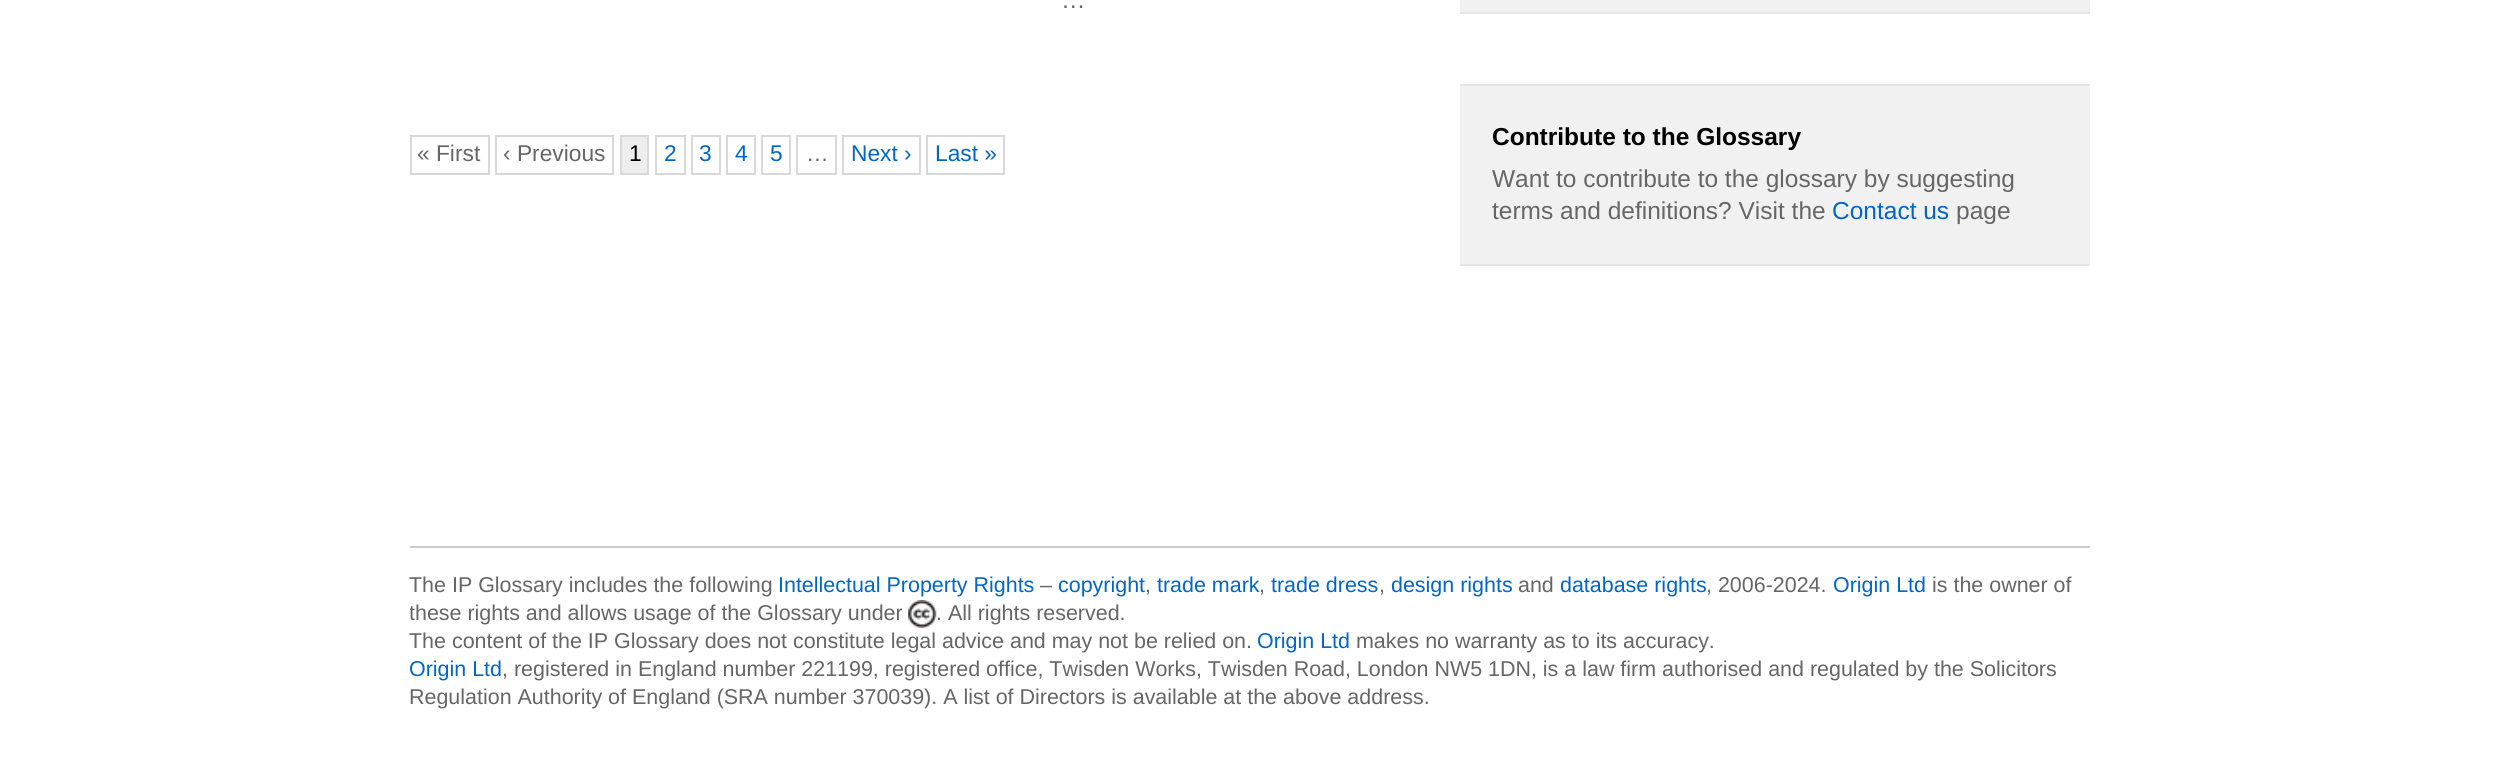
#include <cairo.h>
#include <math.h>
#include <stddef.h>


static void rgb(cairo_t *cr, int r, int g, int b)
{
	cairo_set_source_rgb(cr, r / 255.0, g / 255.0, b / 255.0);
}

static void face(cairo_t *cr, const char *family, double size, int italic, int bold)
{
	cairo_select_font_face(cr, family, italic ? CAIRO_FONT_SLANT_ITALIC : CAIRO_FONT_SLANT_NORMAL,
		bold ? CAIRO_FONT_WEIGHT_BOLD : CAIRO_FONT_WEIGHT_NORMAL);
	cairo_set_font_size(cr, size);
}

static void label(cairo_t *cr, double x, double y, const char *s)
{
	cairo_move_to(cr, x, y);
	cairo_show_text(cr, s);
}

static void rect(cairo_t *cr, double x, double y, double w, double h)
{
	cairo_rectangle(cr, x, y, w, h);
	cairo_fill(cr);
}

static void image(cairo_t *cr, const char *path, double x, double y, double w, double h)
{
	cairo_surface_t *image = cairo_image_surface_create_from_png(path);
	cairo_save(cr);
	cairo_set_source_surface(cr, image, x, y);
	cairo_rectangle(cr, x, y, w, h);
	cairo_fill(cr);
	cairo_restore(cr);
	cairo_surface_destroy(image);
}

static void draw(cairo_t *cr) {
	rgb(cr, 255, 255, 255);
	cairo_paint(cr);
	face(cr, "Liberation Sans", 24.5, 0, 0);
	rgb(cr, 102, 102, 102);
	label(cr, 1061, 8, "…");
	cairo_rectangle(cr, 411, 136, 78, 38);
	rgb(cr, 217, 217, 217);
	cairo_stroke(cr);
	face(cr, "Liberation Sans", 22.75, 0, 0);
	rgb(cr, 102, 102, 102);
	label(cr, 417, 161, "« First");
	cairo_rectangle(cr, 496, 136, 117, 38);
	rgb(cr, 217, 217, 217);
	cairo_stroke(cr);
	rgb(cr, 102, 102, 102);
	label(cr, 503, 161, "‹ Previous");
	rgb(cr, 238, 238, 238);
	cairo_rectangle(cr, 621, 136, 27, 38);
	cairo_fill_preserve(cr);
	rgb(cr, 217, 217, 217);
	cairo_stroke(cr);
	rgb(cr, 0, 0, 0);
	label(cr, 629, 161, "1");
	cairo_rectangle(cr, 656, 136, 29, 38);
	rgb(cr, 217, 217, 217);
	cairo_stroke(cr);
	rgb(cr, 0, 102, 204);
	label(cr, 664, 161, "2");
	cairo_rectangle(cr, 692, 136, 28, 38);
	rgb(cr, 217, 217, 217);
	cairo_stroke(cr);
	rgb(cr, 0, 102, 204);
	label(cr, 699, 161, "3");
	cairo_rectangle(cr, 727, 136, 28, 38);
	rgb(cr, 217, 217, 217);
	cairo_stroke(cr);
	rgb(cr, 0, 102, 204);
	label(cr, 735, 161, "4");
	cairo_rectangle(cr, 762, 136, 28, 38);
	rgb(cr, 217, 217, 217);
	cairo_stroke(cr);
	rgb(cr, 0, 102, 204);
	label(cr, 770, 161, "5");
	cairo_rectangle(cr, 797, 136, 39, 38);
	rgb(cr, 217, 217, 217);
	cairo_stroke(cr);
	rgb(cr, 102, 102, 102);
	label(cr, 806, 161, "…");
	cairo_rectangle(cr, 843, 136, 77, 38);
	rgb(cr, 217, 217, 217);
	cairo_stroke(cr);
	rgb(cr, 0, 102, 204);
	label(cr, 851, 161, "Next ›");
	cairo_rectangle(cr, 927, 136, 77, 38);
	rgb(cr, 217, 217, 217);
	cairo_stroke(cr);
	rgb(cr, 0, 102, 204);
	label(cr, 935, 161, "Last »");
	rgb(cr, 241, 241, 241);
	rect(cr, 1460, 0, 630, 12);
	rgb(cr, 229, 229, 229);
	rect(cr, 1460, 12, 630, 2);
	rgb(cr, 241, 241, 241);
	rect(cr, 1460, 86, 630, 178);
	rgb(cr, 229, 229, 229);
	rect(cr, 1460, 84, 630, 2);
	rect(cr, 1460, 264, 630, 2);
	face(cr, "Liberation Sans", 24.5, 0, 1);
	rgb(cr, 0, 0, 0);
	label(cr, 1492, 145, "Contribute to the Glossary");
	face(cr, "Liberation Sans", 24.5, 0, 0);
	rgb(cr, 102, 102, 102);
	label(cr, 1492, 187, "Want to contribute to the glossary by suggesting");
	label(cr, 1492, 219, "terms and definitions? Visit the");
	rgb(cr, 0, 102, 204);
	label(cr, 1832, 219, "Contact us");
	rgb(cr, 102, 102, 102);
	label(cr, 1956, 219, "page");
	rgb(cr, 203, 203, 203);
	rect(cr, 410, 546, 1680, 2);
	face(cr, "Liberation Sans", 21.45, 0, 0);
	rgb(cr, 102, 102, 102);
	label(cr, 409, 592, "The IP Glossary includes the following");
	rgb(cr, 0, 102, 204);
	label(cr, 778, 592, "Intellectual Property Rights");
	rgb(cr, 102, 102, 102);
	label(cr, 1040, 592, "–");
	rgb(cr, 0, 102, 204);
	label(cr, 1058, 592, "copyright");
	label(cr, 1157, 592, "trade mark");
	label(cr, 1271, 592, "trade dress");
	label(cr, 1391, 592, "design rights");
	rgb(cr, 102, 102, 102);
	label(cr, 1518, 592, "and");
	rgb(cr, 0, 102, 204);
	label(cr, 1560, 592, "database rights");
	rgb(cr, 102, 102, 102);
	label(cr, 1706, 592, ", 2006-2024.");
	rgb(cr, 0, 102, 204);
	label(cr, 1833, 592, "Origin Ltd");
	rgb(cr, 102, 102, 102);
	label(cr, 1932, 592, "is the owner of");
	label(cr, 1145, 592, ",");
	label(cr, 1259, 592, ",");
	label(cr, 1379, 592, ",");
	cairo_save(cr);
	cairo_rectangle(cr, 410, 548, 1680, 192);
	cairo_clip(cr);
	label(cr, 409, 620, "these rights and allows usage of the Glossary under");
	cairo_restore(cr);
	image(cr, "image0.png", 908, 600, 29, 28);
	label(cr, 936, 620, ". All rights reserved.");
	label(cr, 409, 648, "The content of the IP Glossary does not constitute legal advice and may not be relied on.");
	rgb(cr, 0, 102, 204);
	label(cr, 1257, 648, "Origin Ltd");
	rgb(cr, 102, 102, 102);
	label(cr, 1356, 648, "makes no warranty as to its accuracy.");
	cairo_save(cr);
	cairo_rectangle(cr, 410, 548, 1680, 192);
	cairo_clip(cr);
	rgb(cr, 0, 102, 204);
	label(cr, 409, 676, "Origin Ltd");
	cairo_restore(cr);
	label(cr, 502, 676, ", registered in England number 221199, registered office, Twisden Works, Twisden Road, London NW5 1DN, is a law firm authorised and regulated by the Solicitors");
	label(cr, 409, 704, "Regulation Authority of England (SRA number 370039). A list of Directors is available at the above address.");
}

int main(void) {
	cairo_surface_t *surface = cairo_image_surface_create(CAIRO_FORMAT_RGB24, 2496, 771);
	cairo_t *cr = cairo_create(surface);
	cairo_font_options_t *options = cairo_font_options_create();
	cairo_font_options_set_hint_metrics(options, CAIRO_HINT_METRICS_OFF);
	cairo_font_options_set_hint_style(options, CAIRO_HINT_STYLE_NONE);
	cairo_set_font_options(cr, options);
	cairo_set_miter_limit(cr, 4);
	draw(cr);
	cairo_surface_write_to_png(surface, "render.png");
	cairo_font_options_destroy(options);
	cairo_destroy(cr);
	cairo_surface_destroy(surface);
	return 0;
}
